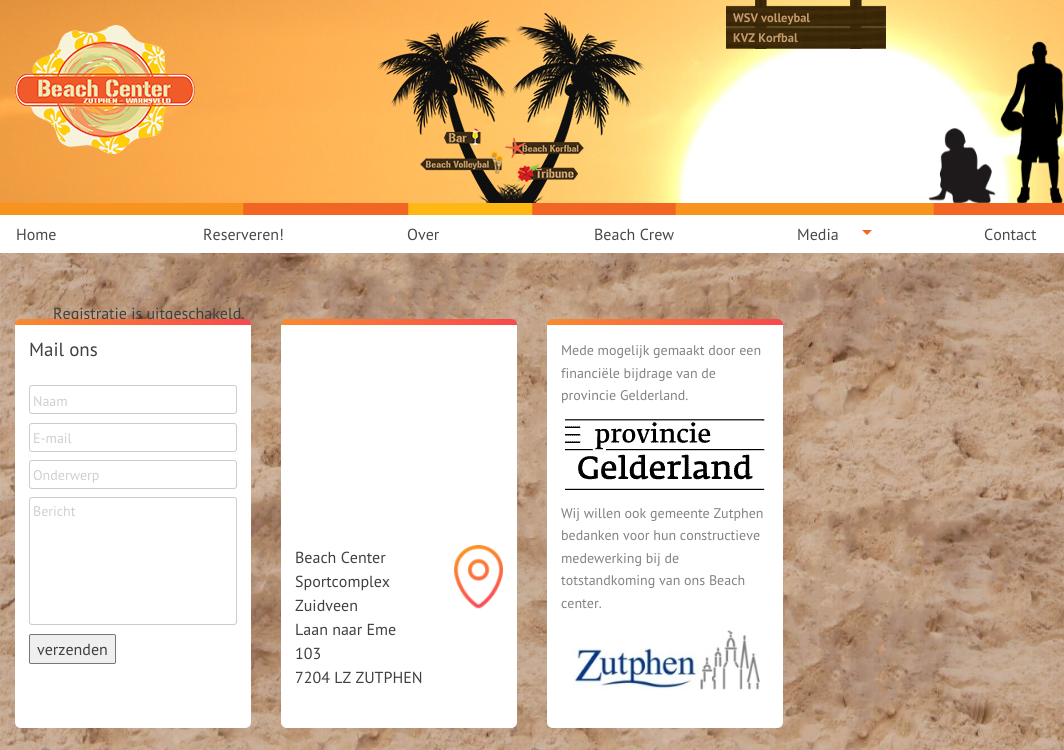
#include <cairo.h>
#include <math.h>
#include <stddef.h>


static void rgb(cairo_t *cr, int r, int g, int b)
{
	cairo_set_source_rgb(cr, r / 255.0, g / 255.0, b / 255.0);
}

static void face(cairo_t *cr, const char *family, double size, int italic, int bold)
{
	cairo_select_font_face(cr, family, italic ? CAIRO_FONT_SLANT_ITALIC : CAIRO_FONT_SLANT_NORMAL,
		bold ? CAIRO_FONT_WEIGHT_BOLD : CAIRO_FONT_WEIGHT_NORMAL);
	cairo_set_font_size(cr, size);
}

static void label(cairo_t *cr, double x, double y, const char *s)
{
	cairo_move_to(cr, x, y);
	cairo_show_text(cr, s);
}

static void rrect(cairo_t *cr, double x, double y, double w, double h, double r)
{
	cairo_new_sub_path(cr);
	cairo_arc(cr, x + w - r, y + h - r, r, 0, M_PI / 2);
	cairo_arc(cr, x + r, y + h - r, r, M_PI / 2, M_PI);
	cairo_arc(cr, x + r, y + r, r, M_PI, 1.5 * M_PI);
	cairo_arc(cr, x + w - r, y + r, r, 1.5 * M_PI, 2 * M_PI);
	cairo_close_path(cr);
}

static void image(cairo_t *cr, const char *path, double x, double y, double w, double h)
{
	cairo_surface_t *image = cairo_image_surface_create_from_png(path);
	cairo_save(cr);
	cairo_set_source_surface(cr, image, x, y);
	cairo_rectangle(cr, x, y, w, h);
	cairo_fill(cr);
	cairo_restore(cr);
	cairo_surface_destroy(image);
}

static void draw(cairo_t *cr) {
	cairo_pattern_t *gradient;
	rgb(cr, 255, 255, 255);
	cairo_paint(cr);
	image(cr, "image0.png", 0, 0, 1064, 203);
	image(cr, "image1.png", 15, 25, 180, 129);
	image(cr, "image2.png", 377, 13, 268, 190);
	image(cr, "image3.png", 726, 0, 160, 49);
	face(cr, "PT Sans", 12.5, 0, 1);
	rgb(cr, 196, 154, 107);
	label(cr, 733, 22, "WSV volleybal");
	label(cr, 733, 42, "KVZ Korfbal");
	image(cr, "image4.png", 928, 41, 136, 162);
	image(cr, "image5.png", 0, 203, 1064, 12);
	face(cr, "PT Sans", 16, 0, 0);
	rgb(cr, 73, 73, 73);
	label(cr, 16, 240, "Home");
	label(cr, 203, 240, "Reserveren!");
	label(cr, 407, 240, "Over");
	label(cr, 594, 240, "Beach Crew");
	label(cr, 797, 240, "Media");
	rgb(cr, 243, 101, 35);
	cairo_new_path(cr);
	cairo_move_to(cr, 862, 230);
	cairo_line_to(cr, 872, 230);
	cairo_line_to(cr, 867, 235);
	cairo_close_path(cr);
	cairo_fill(cr);
	rgb(cr, 73, 73, 73);
	label(cr, 984, 240, "Contact");
	image(cr, "image9.png", 0, 253, 1064, 497);
	rgb(cr, 64, 64, 64);
	label(cr, 53, 319, "Registratie is uitgeschakeld.");
	rgb(cr, 255, 255, 255);
	cairo_new_path(cr);
	cairo_move_to(cr, 15, 325);
	cairo_line_to(cr, 251, 325);
	cairo_line_to(cr, 251, 722);
	cairo_curve_to(cr, 251, 725.5, 248.5, 728, 245, 728);
	cairo_line_to(cr, 21, 728);
	cairo_curve_to(cr, 17.5, 728, 15, 725.5, 15, 722);
	cairo_close_path(cr);
	cairo_fill(cr);
	gradient = cairo_pattern_create_linear(251, 322, 15, 322);
	cairo_pattern_add_color_stop_rgba(gradient, 0, 0.973, 0.282, 0.298, 1);
	cairo_pattern_add_color_stop_rgba(gradient, 1, 0.973, 0.545, 0.188, 1);
	cairo_set_source(cr, gradient);
	cairo_pattern_destroy(gradient);
	cairo_new_path(cr);
	cairo_move_to(cr, 21, 319);
	cairo_line_to(cr, 245, 319);
	cairo_curve_to(cr, 248.5, 319, 251, 321.5, 251, 325);
	cairo_line_to(cr, 15, 325);
	cairo_curve_to(cr, 15, 321.5, 17.5, 319, 21, 319);
	cairo_close_path(cr);
	cairo_fill(cr);
	face(cr, "PT Sans", 19, 0, 0);
	rgb(cr, 64, 64, 64);
	label(cr, 29, 356, "Mail ons");
	rrect(cr, 29.5, 385.5, 207, 28, 2.5);
	rgb(cr, 204, 204, 204);
	cairo_set_line_width(cr, 1);
	cairo_stroke(cr);
	face(cr, "PT Sans", 14, 0, 0);
	rgb(cr, 207, 207, 207);
	label(cr, 33, 406, "Naam");
	rrect(cr, 29.5, 423.5, 207, 28, 2.5);
	rgb(cr, 204, 204, 204);
	cairo_stroke(cr);
	rgb(cr, 207, 207, 207);
	label(cr, 33, 443, "E-mail");
	rrect(cr, 29.5, 460.5, 207, 28, 2.5);
	rgb(cr, 204, 204, 204);
	cairo_stroke(cr);
	rgb(cr, 207, 207, 207);
	label(cr, 33, 480, "Onderwerp");
	rrect(cr, 29.5, 497.5, 207, 127, 2.5);
	rgb(cr, 204, 204, 204);
	cairo_stroke(cr);
	rgb(cr, 207, 207, 207);
	label(cr, 33, 516, "Bericht");
	rgb(cr, 239, 239, 239);
	rrect(cr, 29.5, 634.5, 86, 29, 1.5);
	cairo_fill_preserve(cr);
	rgb(cr, 118, 118, 118);
	cairo_stroke(cr);
	face(cr, "PT Sans", 16, 0, 0);
	rgb(cr, 64, 64, 64);
	label(cr, 37, 655, "verzenden");
	rgb(cr, 255, 255, 255);
	cairo_new_path(cr);
	cairo_move_to(cr, 281, 325);
	cairo_line_to(cr, 517, 325);
	cairo_line_to(cr, 517, 722);
	cairo_curve_to(cr, 517, 725.5, 514.5, 728, 511, 728);
	cairo_line_to(cr, 287, 728);
	cairo_curve_to(cr, 283.5, 728, 281, 725.5, 281, 722);
	cairo_close_path(cr);
	cairo_fill(cr);
	gradient = cairo_pattern_create_linear(517, 322, 281, 322);
	cairo_pattern_add_color_stop_rgba(gradient, 0, 0.973, 0.282, 0.298, 1);
	cairo_pattern_add_color_stop_rgba(gradient, 1, 0.973, 0.545, 0.188, 1);
	cairo_set_source(cr, gradient);
	cairo_pattern_destroy(gradient);
	cairo_new_path(cr);
	cairo_move_to(cr, 287, 319);
	cairo_line_to(cr, 511, 319);
	cairo_curve_to(cr, 514.5, 319, 517, 321.5, 517, 325);
	cairo_line_to(cr, 281, 325);
	cairo_curve_to(cr, 281, 321.5, 283.5, 319, 287, 319);
	cairo_close_path(cr);
	cairo_fill(cr);
	rgb(cr, 64, 64, 64);
	label(cr, 295, 563, "Beach Center");
	label(cr, 295, 587, "Sportcomplex");
	label(cr, 295, 611, "Zuidveen");
	label(cr, 295, 635, "Laan naar Eme");
	label(cr, 295, 659, "103");
	label(cr, 295, 683, "7204 LZ ZUTPHEN");
	image(cr, "image6.png", 454, 545, 49, 64);
	rgb(cr, 255, 255, 255);
	cairo_new_path(cr);
	cairo_move_to(cr, 547, 325);
	cairo_line_to(cr, 783, 325);
	cairo_line_to(cr, 783, 722);
	cairo_curve_to(cr, 783, 725.5, 780.5, 728, 777, 728);
	cairo_line_to(cr, 553, 728);
	cairo_curve_to(cr, 549.5, 728, 547, 725.5, 547, 722);
	cairo_close_path(cr);
	cairo_fill(cr);
	gradient = cairo_pattern_create_linear(783, 322, 547, 322);
	cairo_pattern_add_color_stop_rgba(gradient, 0, 0.973, 0.282, 0.298, 1);
	cairo_pattern_add_color_stop_rgba(gradient, 1, 0.973, 0.545, 0.188, 1);
	cairo_set_source(cr, gradient);
	cairo_pattern_destroy(gradient);
	cairo_new_path(cr);
	cairo_move_to(cr, 553, 319);
	cairo_line_to(cr, 777, 319);
	cairo_curve_to(cr, 780.5, 319, 783, 321.5, 783, 325);
	cairo_line_to(cr, 547, 325);
	cairo_curve_to(cr, 547, 321.5, 549.5, 319, 553, 319);
	cairo_close_path(cr);
	cairo_fill(cr);
	face(cr, "PT Sans", 14, 0, 0);
	rgb(cr, 130, 130, 130);
	label(cr, 561, 355, "Mede mogelijk gemaakt door een");
	label(cr, 561, 378, "financiële bijdrage van de");
	label(cr, 561, 400, "provincie Gelderland.");
	image(cr, "image7.png", 565, 419, 200, 71);
	label(cr, 561, 518, "Wij willen ook gemeente Zutphen");
	label(cr, 561, 540, "bedanken voor hun constructieve");
	label(cr, 561, 563, "medewerking bij de");
	label(cr, 561, 585, "totstandkoming van ons Beach");
	label(cr, 561, 608, "center.");
	image(cr, "image8.png", 573, 630, 187, 60);
}

int main(void) {
	cairo_surface_t *surface = cairo_image_surface_create(CAIRO_FORMAT_RGB24, 1064, 750);
	cairo_t *cr = cairo_create(surface);
	cairo_font_options_t *options = cairo_font_options_create();
	cairo_font_options_set_hint_metrics(options, CAIRO_HINT_METRICS_OFF);
	cairo_font_options_set_hint_style(options, CAIRO_HINT_STYLE_NONE);
	cairo_set_font_options(cr, options);
	cairo_set_miter_limit(cr, 4);
	draw(cr);
	cairo_surface_write_to_png(surface, "render.png");
	cairo_font_options_destroy(options);
	cairo_destroy(cr);
	cairo_surface_destroy(surface);
	return 0;
}
